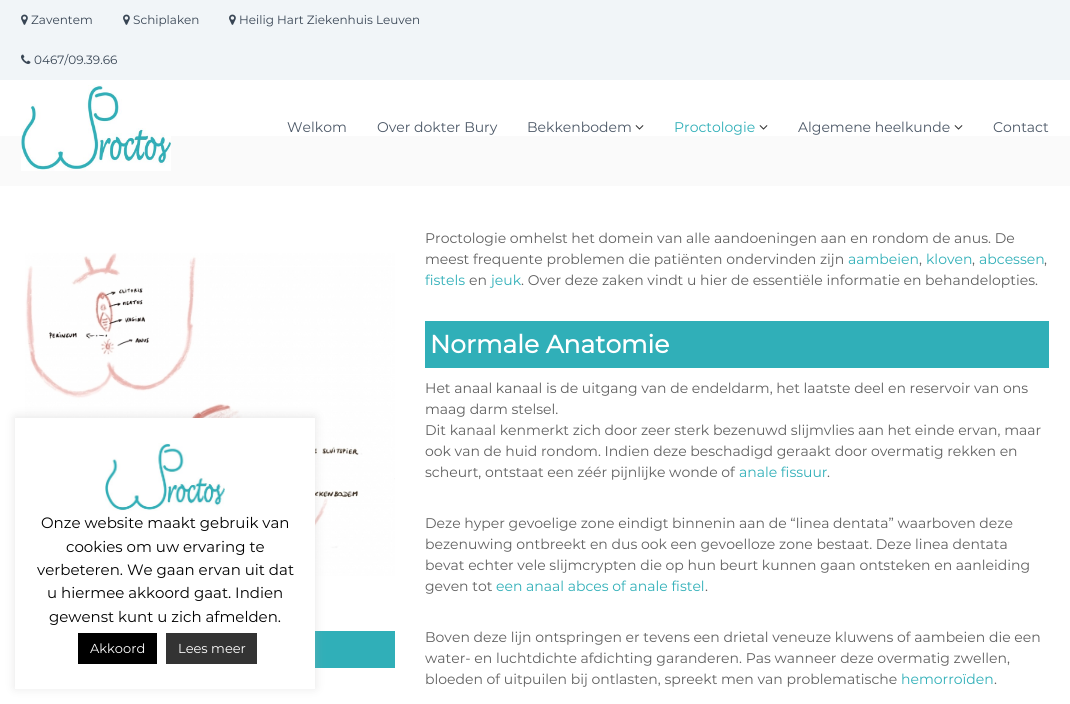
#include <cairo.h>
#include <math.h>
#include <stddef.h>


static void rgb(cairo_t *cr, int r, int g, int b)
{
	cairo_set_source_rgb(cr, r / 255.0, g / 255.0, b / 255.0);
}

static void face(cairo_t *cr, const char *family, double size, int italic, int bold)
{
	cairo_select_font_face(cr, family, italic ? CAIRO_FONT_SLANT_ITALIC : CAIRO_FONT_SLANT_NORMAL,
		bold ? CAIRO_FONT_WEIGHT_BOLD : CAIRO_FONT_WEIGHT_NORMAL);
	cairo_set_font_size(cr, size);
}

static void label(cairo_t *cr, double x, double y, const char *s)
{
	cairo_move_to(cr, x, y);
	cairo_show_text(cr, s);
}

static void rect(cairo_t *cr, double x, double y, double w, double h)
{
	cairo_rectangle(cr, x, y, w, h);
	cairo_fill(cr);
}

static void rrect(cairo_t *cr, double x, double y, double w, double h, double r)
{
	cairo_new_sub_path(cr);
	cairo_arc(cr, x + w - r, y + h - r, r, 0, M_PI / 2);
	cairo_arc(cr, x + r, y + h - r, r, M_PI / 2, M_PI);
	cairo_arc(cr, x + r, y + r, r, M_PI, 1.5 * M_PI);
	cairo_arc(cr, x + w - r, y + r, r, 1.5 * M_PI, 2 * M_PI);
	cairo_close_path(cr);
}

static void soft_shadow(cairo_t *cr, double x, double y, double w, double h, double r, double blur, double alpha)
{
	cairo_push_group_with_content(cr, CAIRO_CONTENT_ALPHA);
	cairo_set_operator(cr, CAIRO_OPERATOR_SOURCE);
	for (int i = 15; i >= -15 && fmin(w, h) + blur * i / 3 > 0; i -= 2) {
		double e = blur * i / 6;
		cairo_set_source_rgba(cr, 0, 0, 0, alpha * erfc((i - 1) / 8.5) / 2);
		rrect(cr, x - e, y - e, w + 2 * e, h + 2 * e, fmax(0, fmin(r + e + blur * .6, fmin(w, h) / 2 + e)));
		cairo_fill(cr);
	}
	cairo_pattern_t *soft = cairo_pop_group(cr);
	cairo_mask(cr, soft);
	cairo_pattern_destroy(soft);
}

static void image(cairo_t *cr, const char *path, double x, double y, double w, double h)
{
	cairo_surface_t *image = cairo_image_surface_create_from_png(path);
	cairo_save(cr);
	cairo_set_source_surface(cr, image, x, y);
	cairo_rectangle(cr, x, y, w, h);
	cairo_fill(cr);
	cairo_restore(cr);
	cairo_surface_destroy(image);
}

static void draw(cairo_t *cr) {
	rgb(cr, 255, 255, 255);
	cairo_paint(cr);
	rgb(cr, 241, 245, 248);
	rect(cr, 0, 0, 1070, 80);
	image(cr, "image0.png", 21, 14, 7, 11);
	face(cr, "Montserrat Thin", 12, 0, 0);
	rgb(cr, 56, 69, 84);
	label(cr, 31, 24, "Zaventem");
	image(cr, "image0.png", 123, 14, 7, 11);
	label(cr, 133, 24, "Schiplaken");
	image(cr, "image0.png", 229, 14, 7, 11);
	label(cr, 239, 24, "Heilig Hart Ziekenhuis Leuven");
	image(cr, "image1.png", 21, 54, 10, 10);
	label(cr, 34, 64, "0467/09.39.66");
	rgb(cr, 250, 250, 250);
	rect(cr, 0, 136, 1070, 50);
	image(cr, "image2.png", 21, 85, 150, 86);
	face(cr, "Montserrat Thin", 14, 0, 0);
	rgb(cr, 76, 88, 103);
	label(cr, 287, 132, "Welkom");
	label(cr, 377, 132, "Over dokter Bury");
	label(cr, 527, 132, "Bekkenbodem");
	image(cr, "image3.png", 635, 125, 9, 5);
	rgb(cr, 48, 175, 184);
	label(cr, 674, 132, "Proctologie");
	image(cr, "image3.png", 759, 125, 9, 5);
	rgb(cr, 76, 88, 103);
	label(cr, 798, 132, "Algemene heelkunde");
	image(cr, "image3.png", 954, 125, 9, 5);
	label(cr, 993, 132, "Contact");
	image(cr, "image4.png", 25, 253, 370, 323);
	rgb(cr, 48, 175, 184);
	rect(cr, 315, 631, 80, 37);
	rgb(cr, 96, 96, 96);
	label(cr, 425, 243, "Proctologie omhelst het domein van alle aandoeningen aan en rondom de anus. De");
	label(cr, 425, 264, "meest frequente problemen die patiënten ondervinden zijn");
	rgb(cr, 48, 175, 184);
	label(cr, 848, 264, "aambeien");
	rgb(cr, 96, 96, 96);
	label(cr, 919, 264, ",");
	rgb(cr, 48, 175, 184);
	label(cr, 926, 264, "kloven");
	rgb(cr, 96, 96, 96);
	label(cr, 972, 264, ",");
	rgb(cr, 48, 175, 184);
	label(cr, 979, 264, "abcessen");
	rgb(cr, 96, 96, 96);
	label(cr, 1044, 264, ",");
	rgb(cr, 48, 175, 184);
	label(cr, 425, 285, "fistels");
	rgb(cr, 96, 96, 96);
	label(cr, 469, 285, "en");
	rgb(cr, 48, 175, 184);
	label(cr, 491, 285, "jeuk");
	rgb(cr, 96, 96, 96);
	label(cr, 521, 285, ". Over deze zaken vindt u hier de essentiële informatie en behandelopties.");
	rgb(cr, 48, 175, 184);
	rect(cr, 425, 321, 624, 47);
	face(cr, "Montserrat", 25, 0, 1);
	rgb(cr, 255, 255, 255);
	label(cr, 430, 353, "Normale Anatomie");
	face(cr, "Montserrat Thin", 14, 0, 0);
	rgb(cr, 96, 96, 96);
	label(cr, 425, 393, "Het anaal kanaal is de uitgang van de endeldarm, het laatste deel en reservoir van ons");
	label(cr, 425, 414, "maag darm stelsel.");
	label(cr, 425, 435, "Dit kanaal kenmerkt zich door zeer sterk bezenuwd slijmvlies aan het einde ervan, maar");
	label(cr, 425, 456, "ook van de huid rondom. Indien deze beschadigd geraakt door overmatig rekken en");
	label(cr, 425, 477, "scheurt, ontstaat een zéér pijnlijke wonde of");
	rgb(cr, 48, 175, 184);
	label(cr, 739, 477, "anale fissuur");
	rgb(cr, 96, 96, 96);
	label(cr, 827, 477, ".");
	label(cr, 425, 528, "Deze hyper gevoelige zone eindigt binnenin aan de “linea dentata” waarboven deze");
	label(cr, 425, 549, "bezenuwing ontbreekt en dus ook een gevoelloze zone bestaat. Deze linea dentata");
	label(cr, 425, 570, "bevat echter vele slijmcrypten die op hun beurt kunnen gaan ontsteken en aanleiding");
	label(cr, 425, 591, "geven tot");
	rgb(cr, 48, 175, 184);
	label(cr, 496, 591, "een anaal abces of anale fistel");
	rgb(cr, 96, 96, 96);
	label(cr, 705, 591, ".");
	label(cr, 425, 642, "Boven deze lijn ontspringen er tevens een drietal veneuze kluwens of aambeien die een");
	label(cr, 425, 663, "water- en luchtdichte afdichting garanderen. Pas wanneer deze overmatig zwellen,");
	label(cr, 425, 684, "bloeden of uitpuilen bij ontlasten, spreekt men van problematische");
	rgb(cr, 48, 175, 184);
	label(cr, 901, 684, "hemorroïden");
	rgb(cr, 96, 96, 96);
	label(cr, 994, 684, ".");
	rgb(cr, 172, 171, 171);
	soft_shadow(cr, 15, 417, 300, 271, 0, 5, 0.3);
	rgb(cr, 255, 255, 255);
	rect(cr, 15, 418, 300, 271);
	image(cr, "image5.png", 105, 443, 120, 68);
	face(cr, "Montserrat Thin", 15, 0, 0);
	rgb(cr, 0, 0, 0);
	label(cr, 41, 528, "Onze website maakt gebruik van");
	label(cr, 66, 552, "cookies om uw ervaring te");
	label(cr, 37, 575, "verbeteren. We gaan ervan uit dat");
	label(cr, 47, 598, "u hiermee akkoord gaat. Indien");
	label(cr, 49, 622, "gewenst kunt u zich afmelden.");
	rect(cr, 78, 633, 79, 31);
	face(cr, "Montserrat Thin", 13, 0, 0);
	rgb(cr, 255, 255, 255);
	label(cr, 90, 653, "Akkoord");
	rgb(cr, 51, 51, 51);
	rect(cr, 166, 633, 91, 31);
	rgb(cr, 255, 255, 255);
	label(cr, 178, 653, "Lees meer");
}

int main(void) {
	cairo_surface_t *surface = cairo_image_surface_create(CAIRO_FORMAT_RGB24, 1070, 704);
	cairo_t *cr = cairo_create(surface);
	cairo_font_options_t *options = cairo_font_options_create();
	cairo_font_options_set_hint_metrics(options, CAIRO_HINT_METRICS_OFF);
	cairo_font_options_set_hint_style(options, CAIRO_HINT_STYLE_NONE);
	cairo_set_font_options(cr, options);
	cairo_set_miter_limit(cr, 4);
	draw(cr);
	cairo_surface_write_to_png(surface, "render.png");
	cairo_font_options_destroy(options);
	cairo_destroy(cr);
	cairo_surface_destroy(surface);
	return 0;
}
